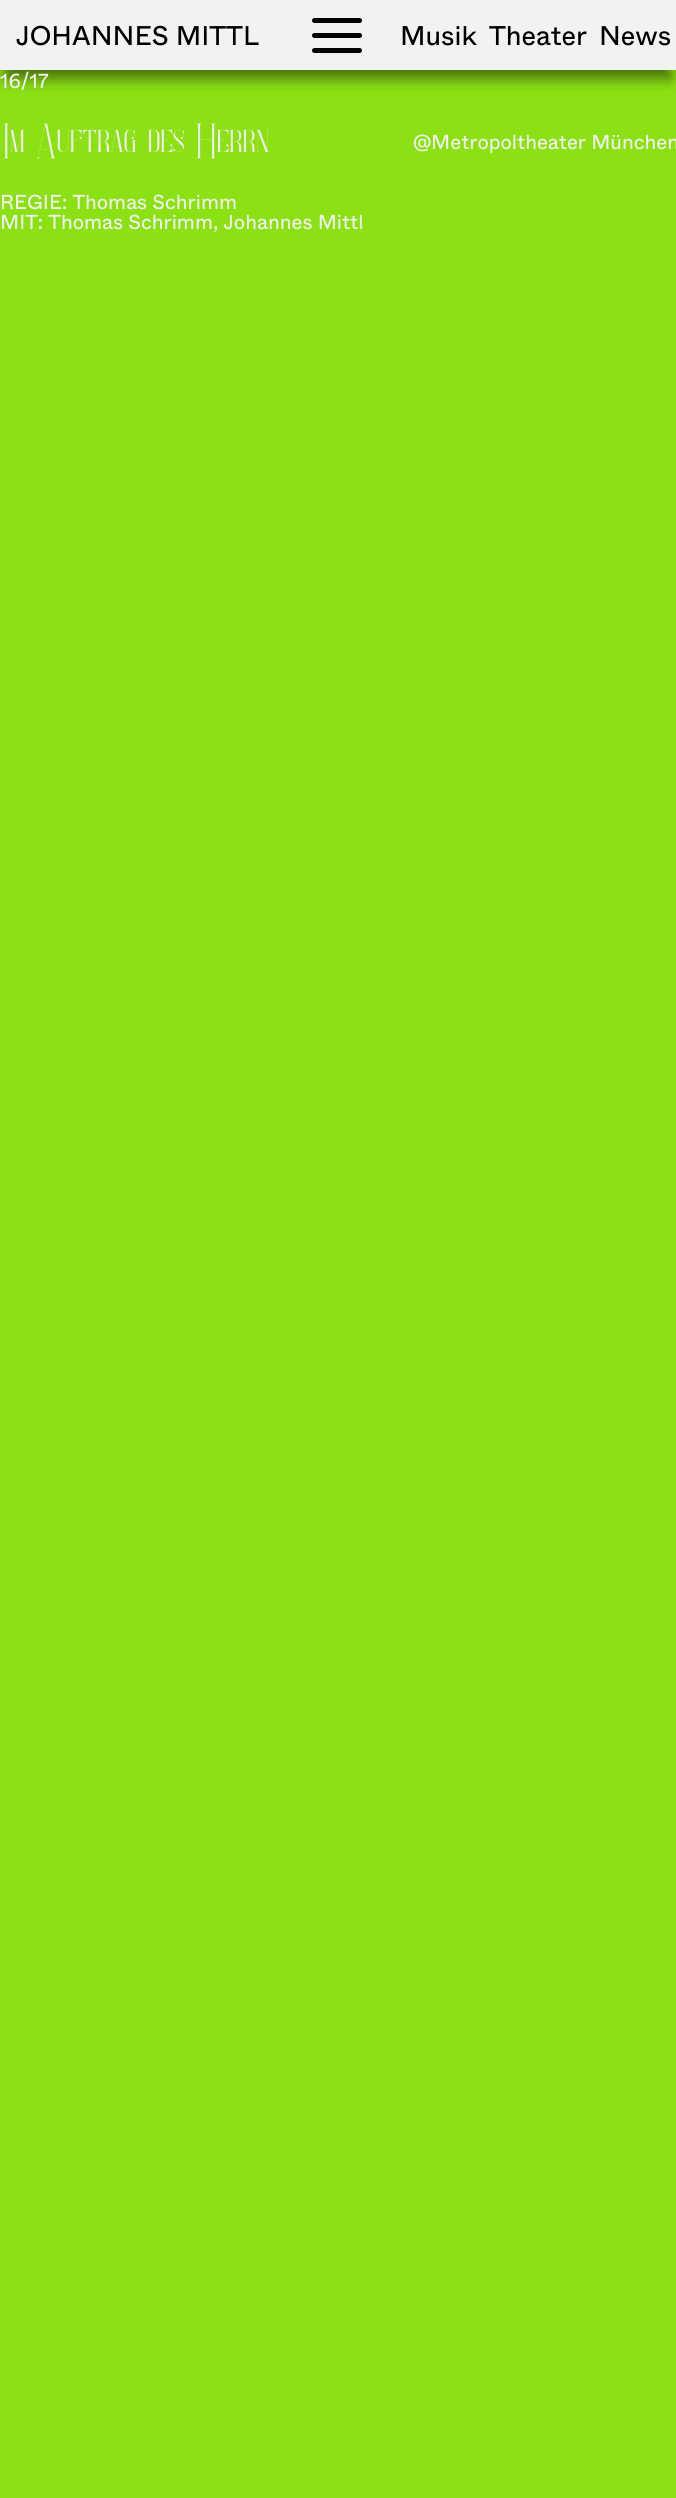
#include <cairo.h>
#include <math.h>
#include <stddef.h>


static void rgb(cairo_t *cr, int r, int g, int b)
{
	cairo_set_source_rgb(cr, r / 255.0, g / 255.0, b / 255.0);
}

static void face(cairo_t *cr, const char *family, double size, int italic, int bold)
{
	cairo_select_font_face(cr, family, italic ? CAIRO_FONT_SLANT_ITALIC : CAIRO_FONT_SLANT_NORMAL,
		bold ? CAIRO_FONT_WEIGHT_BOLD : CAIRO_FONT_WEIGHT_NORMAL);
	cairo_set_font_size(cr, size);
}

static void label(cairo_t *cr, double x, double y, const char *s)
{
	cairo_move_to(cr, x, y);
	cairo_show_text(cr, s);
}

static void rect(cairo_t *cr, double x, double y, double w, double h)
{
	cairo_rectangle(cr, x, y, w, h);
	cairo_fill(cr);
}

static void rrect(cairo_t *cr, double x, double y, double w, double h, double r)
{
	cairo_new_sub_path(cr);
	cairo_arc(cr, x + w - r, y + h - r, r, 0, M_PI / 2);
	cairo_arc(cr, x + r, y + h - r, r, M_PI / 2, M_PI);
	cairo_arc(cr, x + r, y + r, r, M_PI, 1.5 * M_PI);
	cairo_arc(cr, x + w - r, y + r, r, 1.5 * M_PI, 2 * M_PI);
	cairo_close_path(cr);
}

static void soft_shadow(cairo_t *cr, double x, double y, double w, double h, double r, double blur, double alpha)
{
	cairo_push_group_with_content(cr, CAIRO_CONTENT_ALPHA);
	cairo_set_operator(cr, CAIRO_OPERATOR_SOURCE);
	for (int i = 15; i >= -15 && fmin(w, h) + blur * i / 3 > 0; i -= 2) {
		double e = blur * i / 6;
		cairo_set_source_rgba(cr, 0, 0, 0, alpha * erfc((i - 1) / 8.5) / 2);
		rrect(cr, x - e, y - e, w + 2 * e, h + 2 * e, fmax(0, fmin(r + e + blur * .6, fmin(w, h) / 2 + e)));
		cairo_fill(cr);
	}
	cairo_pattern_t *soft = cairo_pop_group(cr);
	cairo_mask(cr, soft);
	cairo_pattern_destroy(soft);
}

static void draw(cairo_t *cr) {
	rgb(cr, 140, 225, 20);
	cairo_paint(cr);
	rgb(cr, 0, 0, 0);
	soft_shadow(cr, 5, 19, 666, 60, 0, 7, 0.49);
	rgb(cr, 242, 242, 242);
	rect(cr, 0, 0, 676, 70);
	face(cr, "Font", 27, 0, 0);
	rgb(cr, 0, 0, 0);
	label(cr, 16, 45, "JOHANNES MITTL");
	rrect(cr, 312, 18, 50, 5, 2.5);
	cairo_fill(cr);
	rrect(cr, 312, 33, 50, 5, 2.5);
	cairo_fill(cr);
	rrect(cr, 312, 48, 50, 5, 2.5);
	cairo_fill(cr);
	label(cr, 400, 45, "Musik");
	label(cr, 489, 45, "Theater");
	label(cr, 599, 45, "News");
	face(cr, "Font", 20.25, 0, 0);
	rgb(cr, 242, 242, 242);
	label(cr, 0, 88, "16/17");
	face(cr, "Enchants", 40.5, 0, 0);
	label(cr, 3, 152, "Im Auftrag des Herrn");
	face(cr, "Font", 20.25, 0, 0);
	label(cr, 413, 149, "@Metropoltheater München");
	label(cr, 0, 209, "REGIE: Thomas Schrimm");
	label(cr, 0, 229, "MIT: Thomas Schrimm, Johannes Mittl");
}

int main(void) {
	cairo_surface_t *surface = cairo_image_surface_create(CAIRO_FORMAT_RGB24, 676, 2498);
	cairo_t *cr = cairo_create(surface);
	cairo_font_options_t *options = cairo_font_options_create();
	cairo_font_options_set_hint_metrics(options, CAIRO_HINT_METRICS_OFF);
	cairo_font_options_set_hint_style(options, CAIRO_HINT_STYLE_NONE);
	cairo_set_font_options(cr, options);
	cairo_set_miter_limit(cr, 4);
	draw(cr);
	cairo_surface_write_to_png(surface, "render.png");
	cairo_font_options_destroy(options);
	cairo_destroy(cr);
	cairo_surface_destroy(surface);
	return 0;
}
